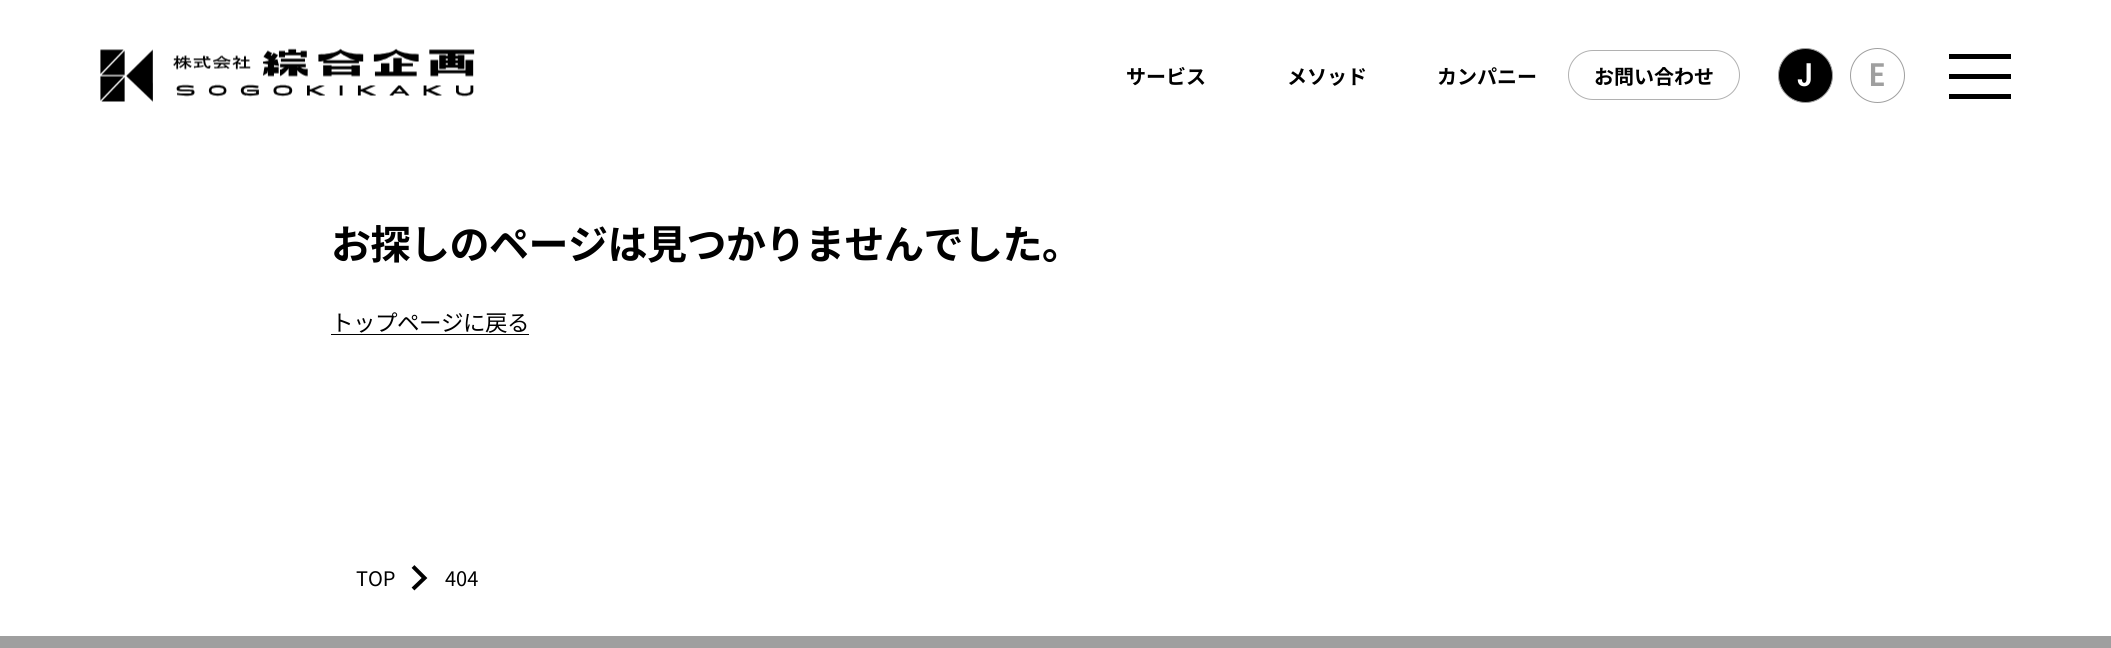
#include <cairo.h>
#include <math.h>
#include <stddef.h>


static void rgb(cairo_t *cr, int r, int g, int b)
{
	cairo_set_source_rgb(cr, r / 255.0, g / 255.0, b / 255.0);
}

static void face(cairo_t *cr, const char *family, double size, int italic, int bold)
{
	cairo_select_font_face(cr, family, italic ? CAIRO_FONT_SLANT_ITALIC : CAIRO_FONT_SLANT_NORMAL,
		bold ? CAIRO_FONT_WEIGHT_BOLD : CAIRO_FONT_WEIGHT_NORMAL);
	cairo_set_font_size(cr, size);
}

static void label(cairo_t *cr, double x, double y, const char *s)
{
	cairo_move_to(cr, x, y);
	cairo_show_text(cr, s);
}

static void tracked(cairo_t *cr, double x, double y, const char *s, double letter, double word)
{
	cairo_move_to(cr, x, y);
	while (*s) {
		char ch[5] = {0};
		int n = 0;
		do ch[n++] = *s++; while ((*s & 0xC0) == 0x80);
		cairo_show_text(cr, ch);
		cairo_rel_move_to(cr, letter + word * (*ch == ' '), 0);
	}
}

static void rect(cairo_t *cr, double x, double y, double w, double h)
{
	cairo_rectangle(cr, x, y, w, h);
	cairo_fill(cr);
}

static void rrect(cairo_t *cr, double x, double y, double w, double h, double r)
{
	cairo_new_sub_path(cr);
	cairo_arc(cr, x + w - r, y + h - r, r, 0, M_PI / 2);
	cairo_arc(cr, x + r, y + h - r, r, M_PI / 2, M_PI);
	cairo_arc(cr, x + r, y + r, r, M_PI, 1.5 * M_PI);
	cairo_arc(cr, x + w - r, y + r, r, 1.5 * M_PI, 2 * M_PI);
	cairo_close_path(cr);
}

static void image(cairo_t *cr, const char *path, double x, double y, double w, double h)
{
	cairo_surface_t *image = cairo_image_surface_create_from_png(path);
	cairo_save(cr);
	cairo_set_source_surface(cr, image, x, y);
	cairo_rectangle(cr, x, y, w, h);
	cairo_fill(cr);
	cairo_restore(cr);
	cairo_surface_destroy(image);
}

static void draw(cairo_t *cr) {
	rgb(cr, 255, 255, 255);
	cairo_paint(cr);
	image(cr, "image0.png", 100, 48, 375, 54);
	face(cr, "Noto Sans JP", 20, 0, 1);
	rgb(cr, 0, 0, 0);
	label(cr, 1126, 84, "サービス");
	label(cr, 1287, 84, "メソッド");
	label(cr, 1437, 84, "カンパニー");
	rrect(cr, 1568.5, 50.5, 171, 49, 24.5);
	rgb(cr, 177, 177, 177);
	cairo_set_line_width(cr, 1);
	cairo_stroke(cr);
	rgb(cr, 0, 0, 0);
	label(cr, 1594, 84, "お問い合わせ");
	cairo_new_path(cr);
	cairo_arc(cr, 1805.5, 75.5, 27, 0, 2 * M_PI);
	cairo_fill_preserve(cr);
	rgb(cr, 159, 159, 159);
	cairo_stroke(cr);
	face(cr, "Roboto Condensed SemiBold", 32, 0, 0);
	rgb(cr, 255, 255, 255);
	label(cr, 1797, 86, "J");
	cairo_new_path(cr);
	cairo_arc(cr, 1877.5, 75.5, 27, 0, 2 * M_PI);
	rgb(cr, 159, 159, 159);
	cairo_stroke(cr);
	label(cr, 1869, 86, "E");
	rgb(cr, 0, 0, 0);
	rect(cr, 1949, 54, 62, 5);
	rect(cr, 1949, 74, 62, 5);
	rect(cr, 1949, 94, 62, 5);
	face(cr, "Noto Sans JP", 40, 0, 1);
	tracked(cr, 331, 259, "お探しのページは見つかりませんでした。", -0.5, 0);
	face(cr, "Noto Sans JP", 22.5, 0, 0);
	tracked(cr, 331, 331, "トップページに戻る", -0.5, 0);
	rect(cr, 331, 334, 198, 1);
	face(cr, "Noto Sans JP", 20, 0, 0);
	label(cr, 356, 586, "TOP");
	cairo_new_path(cr);
	cairo_move_to(cr, 413, 566.5);
	cairo_line_to(cr, 424.5, 578);
	cairo_line_to(cr, 413, 589);
	cairo_set_line_width(cr, 4);
	cairo_stroke(cr);
	label(cr, 445, 586, "404");
	rgb(cr, 159, 159, 159);
	rect(cr, 0, 636, 2111, 12);
}

int main(void) {
	cairo_surface_t *surface = cairo_image_surface_create(CAIRO_FORMAT_RGB24, 2111, 648);
	cairo_t *cr = cairo_create(surface);
	cairo_font_options_t *options = cairo_font_options_create();
	cairo_font_options_set_hint_metrics(options, CAIRO_HINT_METRICS_OFF);
	cairo_font_options_set_hint_style(options, CAIRO_HINT_STYLE_NONE);
	cairo_set_font_options(cr, options);
	cairo_set_miter_limit(cr, 4);
	draw(cr);
	cairo_surface_write_to_png(surface, "render.png");
	cairo_font_options_destroy(options);
	cairo_destroy(cr);
	cairo_surface_destroy(surface);
	return 0;
}
